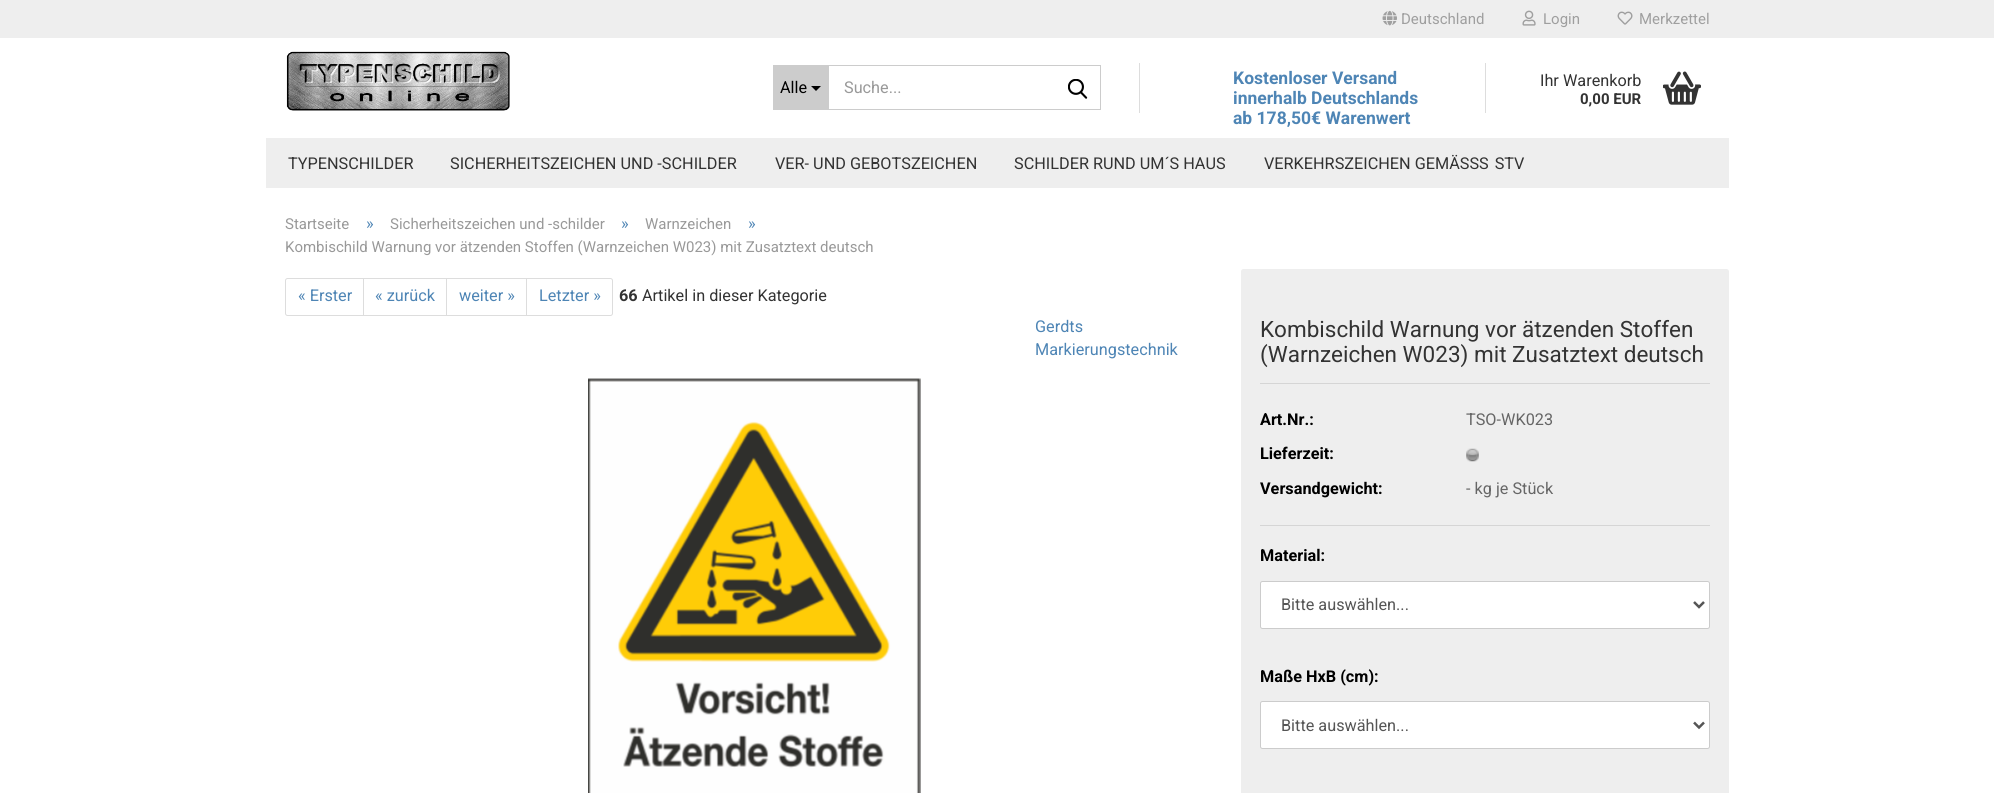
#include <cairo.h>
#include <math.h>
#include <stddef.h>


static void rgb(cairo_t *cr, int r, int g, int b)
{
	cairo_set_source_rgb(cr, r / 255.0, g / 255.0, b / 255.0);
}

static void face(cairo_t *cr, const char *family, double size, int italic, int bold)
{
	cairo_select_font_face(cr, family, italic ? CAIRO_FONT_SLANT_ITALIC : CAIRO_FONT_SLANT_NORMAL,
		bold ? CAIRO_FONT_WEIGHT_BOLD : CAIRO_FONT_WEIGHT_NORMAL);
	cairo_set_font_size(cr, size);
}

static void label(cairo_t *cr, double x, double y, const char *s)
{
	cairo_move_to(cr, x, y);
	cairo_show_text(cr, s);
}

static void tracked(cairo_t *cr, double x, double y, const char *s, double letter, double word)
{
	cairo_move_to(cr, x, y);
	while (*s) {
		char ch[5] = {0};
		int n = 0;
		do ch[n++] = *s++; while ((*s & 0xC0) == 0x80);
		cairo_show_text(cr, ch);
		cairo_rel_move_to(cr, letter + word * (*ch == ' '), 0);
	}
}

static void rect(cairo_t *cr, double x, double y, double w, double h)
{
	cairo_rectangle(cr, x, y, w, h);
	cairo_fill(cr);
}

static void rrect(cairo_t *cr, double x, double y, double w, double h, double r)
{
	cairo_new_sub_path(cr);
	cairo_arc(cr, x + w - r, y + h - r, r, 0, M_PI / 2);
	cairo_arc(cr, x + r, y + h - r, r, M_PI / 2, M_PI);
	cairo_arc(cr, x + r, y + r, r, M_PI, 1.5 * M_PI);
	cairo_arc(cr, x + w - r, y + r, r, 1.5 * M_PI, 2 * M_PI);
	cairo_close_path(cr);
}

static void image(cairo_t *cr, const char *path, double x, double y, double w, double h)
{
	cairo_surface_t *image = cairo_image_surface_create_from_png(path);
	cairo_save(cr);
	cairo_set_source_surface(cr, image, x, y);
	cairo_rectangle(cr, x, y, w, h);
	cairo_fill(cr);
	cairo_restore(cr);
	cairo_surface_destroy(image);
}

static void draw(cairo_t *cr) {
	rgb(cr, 255, 255, 255);
	cairo_paint(cr);
	rgb(cr, 238, 238, 238);
	rect(cr, 0, 0, 1994, 38);
	image(cr, "image0.png", 1382, 10, 15, 16);
	face(cr, "Roboto", 15, 0, 0);
	rgb(cr, 159, 159, 159);
	label(cr, 1401, 24, "Deutschland");
	image(cr, "image1.png", 1522, 10, 14, 16);
	label(cr, 1543, 24, "Login");
	image(cr, "image2.png", 1617, 11, 16, 14);
	label(cr, 1639, 24, "Merkzettel");
	image(cr, "image3.png", 286, 51, 224, 60);
	rgb(cr, 204, 204, 204);
	rect(cr, 773, 65, 56, 45);
	face(cr, "Roboto", 16.25, 0, 0);
	rgb(cr, 0, 0, 0);
	label(cr, 780, 93, "Alle");
	cairo_new_path(cr);
	cairo_move_to(cr, 811, 86);
	cairo_line_to(cr, 821, 86);
	cairo_line_to(cr, 816, 91);
	cairo_close_path(cr);
	cairo_fill(cr);
	rgb(cr, 204, 204, 204);
	rect(cr, 829, 65, 272, 1);
	rect(cr, 1100, 65, 1, 45);
	rect(cr, 829, 109, 272, 1);
	rgb(cr, 153, 153, 153);
	label(cr, 844, 93, "Suche...");
	image(cr, "image4.png", 1068, 79, 20, 20);
	rgb(cr, 221, 221, 221);
	rect(cr, 1139, 63, 1, 50);
	face(cr, "Roboto", 17.5, 0, 1);
	rgb(cr, 78, 133, 181);
	label(cr, 1233, 84, "Kostenloser Versand");
	label(cr, 1233, 104, "innerhalb Deutschlands");
	label(cr, 1233, 124, "ab 178,50€ Warenwert");
	rgb(cr, 221, 221, 221);
	rect(cr, 1485, 63, 1, 50);
	face(cr, "Roboto", 16.25, 0, 0);
	rgb(cr, 51, 51, 51);
	label(cr, 1540, 86, "Ihr Warenkorb");
	face(cr, "Roboto", 15, 0, 1);
	label(cr, 1580, 104, "0,00 EUR");
	image(cr, "image5.png", 1663, 71, 38, 34);
	rgb(cr, 238, 238, 238);
	rect(cr, 266, 138, 1463, 50);
	face(cr, "Roboto", 16.25, 0, 0);
	rgb(cr, 51, 51, 51);
	label(cr, 288, 169, "TYPENSCHILDER");
	label(cr, 450, 169, "SICHERHEITSZEICHEN UND -SCHILDER");
	label(cr, 775, 169, "VER- UND GEBOTSZEICHEN");
	label(cr, 1014, 169, "SCHILDER RUND UM´S HAUS");
	label(cr, 1264, 169, "VERKEHRSZEICHEN GEMÄSS");
	tracked(cr, 1479, 169, "S STV", 0, 2);
	face(cr, "Roboto", 15, 0, 0);
	rgb(cr, 153, 153, 153);
	label(cr, 285, 229, "Startseite");
	face(cr, "Roboto", 16.25, 0, 0);
	rgb(cr, 78, 133, 181);
	label(cr, 366, 229, "»");
	face(cr, "Roboto", 15, 0, 0);
	rgb(cr, 153, 153, 153);
	label(cr, 390, 229, "Sicherheitszeichen und -schilder");
	face(cr, "Roboto", 16.25, 0, 0);
	rgb(cr, 78, 133, 181);
	label(cr, 621, 229, "»");
	face(cr, "Roboto", 15, 0, 0);
	rgb(cr, 153, 153, 153);
	label(cr, 645, 229, "Warnzeichen");
	face(cr, "Roboto", 16.25, 0, 0);
	rgb(cr, 78, 133, 181);
	label(cr, 748, 229, "»");
	face(cr, "Roboto", 15, 0, 0);
	rgb(cr, 153, 153, 153);
	label(cr, 285, 252, "Kombischild Warnung vor ätzenden Stoffen (Warnzeichen W023) mit Zusatztext deutsch");
	cairo_new_path(cr);
	cairo_move_to(cr, 287.5, 278.5);
	cairo_line_to(cr, 363.5, 278.5);
	cairo_line_to(cr, 363.5, 315.5);
	cairo_line_to(cr, 287.5, 315.5);
	cairo_curve_to(cr, 286.5, 315.5, 285.5, 314.5, 285.5, 313.5);
	cairo_line_to(cr, 285.5, 280.5);
	cairo_curve_to(cr, 285.5, 279.5, 286.5, 278.5, 287.5, 278.5);
	cairo_close_path(cr);
	rgb(cr, 221, 221, 221);
	cairo_set_line_width(cr, 1);
	cairo_stroke(cr);
	face(cr, "Roboto", 16.25, 0, 0);
	rgb(cr, 78, 133, 181);
	label(cr, 298, 301, "« Erster");
	cairo_rectangle(cr, 363.5, 278.5, 84, 37);
	rgb(cr, 221, 221, 221);
	cairo_stroke(cr);
	rgb(cr, 78, 133, 181);
	label(cr, 375, 301, "« zurück");
	rgb(cr, 255, 255, 255);
	rect(cr, 447, 279, 1, 36);
	cairo_rectangle(cr, 446.5, 278.5, 81, 37);
	rgb(cr, 221, 221, 221);
	cairo_stroke(cr);
	rgb(cr, 78, 133, 181);
	label(cr, 459, 301, "weiter »");
	rgb(cr, 255, 255, 255);
	cairo_new_path(cr);
	cairo_move_to(cr, 526.5, 278.5);
	cairo_line_to(cr, 610.5, 278.5);
	cairo_curve_to(cr, 611.5, 278.5, 612.5, 279.5, 612.5, 280.5);
	cairo_line_to(cr, 612.5, 313.5);
	cairo_curve_to(cr, 612.5, 314.5, 611.5, 315.5, 610.5, 315.5);
	cairo_line_to(cr, 526.5, 315.5);
	cairo_close_path(cr);
	cairo_fill_preserve(cr);
	rgb(cr, 221, 221, 221);
	cairo_stroke(cr);
	rgb(cr, 78, 133, 181);
	label(cr, 539, 301, "Letzter »");
	face(cr, "Roboto", 16.25, 0, 1);
	rgb(cr, 51, 51, 51);
	label(cr, 619, 301, "66");
	face(cr, "Roboto", 16.25, 0, 0);
	label(cr, 642, 301, "Artikel in dieser Kategorie");
	rgb(cr, 78, 133, 181);
	label(cr, 1035, 332, "Gerdts");
	label(cr, 1035, 355, "Markierungstechnik");
	image(cr, "image6.png", 588, 378, 333, 415);
	rgb(cr, 238, 238, 238);
	rrect(cr, 1241, 269, 488, 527, 2.5);
	cairo_fill(cr);
	rgb(cr, 213, 213, 213);
	rect(cr, 1260, 383, 450, 1);
	face(cr, "Roboto", 22.5, 0, 0);
	rgb(cr, 51, 51, 51);
	label(cr, 1260, 337, "Kombischild Warnung vor ätzenden Stoffen");
	label(cr, 1260, 362, "(Warnzeichen W023) mit Zusatztext deutsch");
	rgb(cr, 213, 213, 213);
	rect(cr, 1260, 525, 450, 1);
	face(cr, "Roboto", 16.25, 0, 1);
	rgb(cr, 0, 0, 0);
	label(cr, 1260, 425, "Art.Nr.:");
	face(cr, "Roboto", 16.25, 0, 0);
	rgb(cr, 102, 102, 102);
	label(cr, 1466, 425, "TSO-WK023");
	face(cr, "Roboto", 16.25, 0, 1);
	rgb(cr, 0, 0, 0);
	label(cr, 1260, 459, "Lieferzeit:");
	image(cr, "image7.png", 1466, 448, 13, 14);
	label(cr, 1260, 494, "Versandgewicht:");
	face(cr, "Roboto", 16.25, 0, 0);
	rgb(cr, 102, 102, 102);
	label(cr, 1466, 494, "- kg je Stück");
	face(cr, "Roboto", 16.25, 0, 1);
	rgb(cr, 0, 0, 0);
	label(cr, 1260, 561, "Material:");
	rgb(cr, 255, 255, 255);
	rrect(cr, 1260.5, 581.5, 449, 47, 2);
	cairo_fill_preserve(cr);
	rgb(cr, 204, 204, 204);
	cairo_stroke(cr);
	cairo_new_path(cr);
	cairo_move_to(cr, 1694, 602);
	cairo_line_to(cr, 1699, 607);
	cairo_line_to(cr, 1704, 602);
	rgb(cr, 85, 85, 85);
	cairo_set_line_width(cr, 2.5);
	cairo_stroke(cr);
	face(cr, "Roboto", 16.25, 0, 0);
	label(cr, 1281, 610, "Bitte auswählen...");
	face(cr, "Roboto", 16.25, 0, 1);
	rgb(cr, 0, 0, 0);
	label(cr, 1260, 682, "Maße HxB (cm):");
	rgb(cr, 255, 255, 255);
	rrect(cr, 1260.5, 701.5, 449, 47, 2);
	cairo_fill_preserve(cr);
	rgb(cr, 204, 204, 204);
	cairo_set_line_width(cr, 1);
	cairo_stroke(cr);
	cairo_new_path(cr);
	cairo_move_to(cr, 1694, 722.5);
	cairo_line_to(cr, 1699, 727.5);
	cairo_line_to(cr, 1704, 722.5);
	rgb(cr, 85, 85, 85);
	cairo_set_line_width(cr, 2.5);
	cairo_stroke(cr);
	face(cr, "Roboto", 16.25, 0, 0);
	label(cr, 1281, 731, "Bitte auswählen...");
}

int main(void) {
	cairo_surface_t *surface = cairo_image_surface_create(CAIRO_FORMAT_RGB24, 1994, 793);
	cairo_t *cr = cairo_create(surface);
	cairo_font_options_t *options = cairo_font_options_create();
	cairo_font_options_set_hint_metrics(options, CAIRO_HINT_METRICS_OFF);
	cairo_font_options_set_hint_style(options, CAIRO_HINT_STYLE_NONE);
	cairo_set_font_options(cr, options);
	cairo_set_miter_limit(cr, 4);
	draw(cr);
	cairo_surface_write_to_png(surface, "render.png");
	cairo_font_options_destroy(options);
	cairo_destroy(cr);
	cairo_surface_destroy(surface);
	return 0;
}
